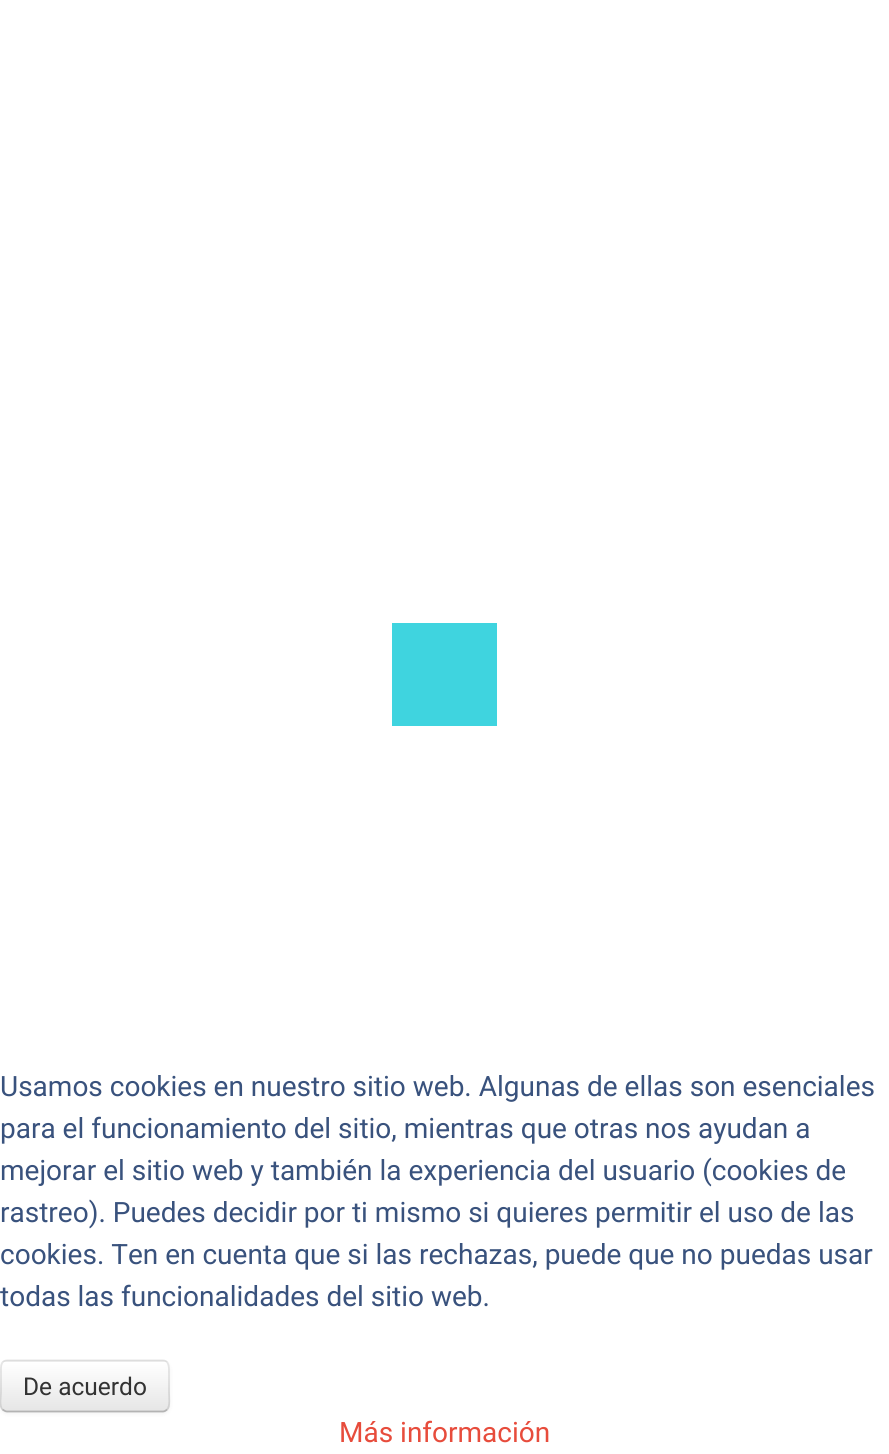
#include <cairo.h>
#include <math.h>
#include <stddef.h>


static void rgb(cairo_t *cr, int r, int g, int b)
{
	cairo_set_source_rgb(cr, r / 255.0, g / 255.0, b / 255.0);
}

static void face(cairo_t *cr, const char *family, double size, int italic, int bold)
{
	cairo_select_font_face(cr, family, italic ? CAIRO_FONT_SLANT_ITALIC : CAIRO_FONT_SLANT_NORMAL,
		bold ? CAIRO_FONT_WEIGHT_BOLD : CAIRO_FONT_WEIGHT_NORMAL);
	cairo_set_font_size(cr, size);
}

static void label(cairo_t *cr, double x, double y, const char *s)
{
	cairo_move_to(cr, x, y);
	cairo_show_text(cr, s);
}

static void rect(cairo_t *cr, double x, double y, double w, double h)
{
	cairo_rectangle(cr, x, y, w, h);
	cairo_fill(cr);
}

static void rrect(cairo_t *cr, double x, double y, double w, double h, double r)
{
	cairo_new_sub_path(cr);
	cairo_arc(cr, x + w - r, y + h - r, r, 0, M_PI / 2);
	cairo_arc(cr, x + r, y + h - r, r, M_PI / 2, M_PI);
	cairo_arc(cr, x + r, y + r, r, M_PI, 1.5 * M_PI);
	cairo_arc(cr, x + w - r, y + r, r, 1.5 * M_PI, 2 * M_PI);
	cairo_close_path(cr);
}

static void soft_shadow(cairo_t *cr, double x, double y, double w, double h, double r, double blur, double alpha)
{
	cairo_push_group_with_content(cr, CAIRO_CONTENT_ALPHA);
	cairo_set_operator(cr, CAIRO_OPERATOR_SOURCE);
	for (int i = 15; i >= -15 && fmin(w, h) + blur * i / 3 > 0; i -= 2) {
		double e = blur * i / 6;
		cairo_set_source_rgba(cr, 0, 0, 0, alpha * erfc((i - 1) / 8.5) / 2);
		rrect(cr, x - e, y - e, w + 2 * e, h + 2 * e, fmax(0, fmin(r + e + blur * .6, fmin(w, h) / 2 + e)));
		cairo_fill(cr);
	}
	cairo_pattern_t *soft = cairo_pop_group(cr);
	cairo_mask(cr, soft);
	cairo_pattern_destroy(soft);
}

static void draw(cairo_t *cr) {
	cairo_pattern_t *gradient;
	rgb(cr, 255, 255, 255);
	cairo_paint(cr);
	rgb(cr, 63, 212, 223);
	rect(cr, 392, 623, 105, 33);
	rect(cr, 392, 656, 105, 35);
	rect(cr, 392, 691, 105, 35);
	face(cr, "Roboto", 28, 0, 0);
	rgb(cr, 57, 82, 125);
	label(cr, 0, 1096, "Usamos cookies en nuestro sitio web. Algunas de ellas son esenciales");
	label(cr, 0, 1138, "para el funcionamiento del sitio, mientras que otras nos ayudan a");
	label(cr, 0, 1180, "mejorar el sitio web y también la experiencia del usuario (cookies de");
	label(cr, 0, 1222, "rastreo). Puedes decidir por ti mismo si quieres permitir el uso de las");
	label(cr, 0, 1264, "cookies. Ten en cuenta que si las rechazas, puede que no puedas usar");
	label(cr, 0, 1306, "todas las funcionalidades del sitio web.");
	rgb(cr, 0, 0, 0);
	soft_shadow(cr, 0, 1362, 170, 52, 7, 2, 0.05);
	rgb(cr, 245, 245, 245);
	rrect(cr, 0, 1360, 170, 52, 7);
	cairo_fill(cr);
	cairo_save(cr);
	rrect(cr, 0, 1360, 170, 52, 7);
	cairo_clip(cr);
	gradient = cairo_pattern_create_linear(85, 1362, 85, 1411);
	cairo_pattern_add_color_stop_rgba(gradient, 0, 1, 1, 1, 1);
	cairo_pattern_add_color_stop_rgba(gradient, 1, 0.902, 0.902, 0.902, 1);
	cairo_set_source(cr, gradient);
	cairo_pattern_destroy(gradient);
	rect(cr, 0, 1362, 170, 49);
	cairo_restore(cr);
	cairo_new_path(cr);
	cairo_move_to(cr, 167, 1409.5);
	cairo_curve_to(cr, 166, 1410.5, 164.5, 1411.5, 163, 1411.5);
	cairo_line_to(cr, 7, 1411.5);
	cairo_curve_to(cr, 5.5, 1411.5, 4, 1410.5, 2.5, 1409.5);
	rgb(cr, 179, 179, 179);
	cairo_set_line_width(cr, 1.8);
	cairo_stroke(cr);
	cairo_new_path(cr);
	cairo_move_to(cr, 2.5, 1409.5);
	cairo_curve_to(cr, -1, 1406, 1, 1396.5, 1, 1392.5);
	cairo_line_to(cr, 1, 1373);
	cairo_curve_to(cr, 1, 1368.5, 0, 1360.5, 7, 1360.5);
	cairo_line_to(cr, 163, 1360.5);
	cairo_curve_to(cr, 169.5, 1360.5, 169, 1368.5, 169, 1373);
	cairo_line_to(cr, 169, 1392.5);
	cairo_curve_to(cr, 169, 1396.5, 170.5, 1406, 167, 1409.5);
	cairo_set_source_rgba(cr, 0, 0, 0, 0.1);
	cairo_stroke(cr);
	face(cr, "Roboto", 24.5, 0, 0);
	rgb(cr, 51, 51, 51);
	label(cr, 23, 1395, "De acuerdo");
	face(cr, "Roboto", 28, 0, 0);
	rgb(cr, 231, 76, 60);
	label(cr, 339, 1442, "Más información");
}

int main(void) {
	cairo_surface_t *surface = cairo_image_surface_create(CAIRO_FORMAT_RGB24, 889, 1454);
	cairo_t *cr = cairo_create(surface);
	cairo_font_options_t *options = cairo_font_options_create();
	cairo_font_options_set_hint_metrics(options, CAIRO_HINT_METRICS_OFF);
	cairo_font_options_set_hint_style(options, CAIRO_HINT_STYLE_NONE);
	cairo_set_font_options(cr, options);
	cairo_set_miter_limit(cr, 4);
	draw(cr);
	cairo_surface_write_to_png(surface, "render.png");
	cairo_font_options_destroy(options);
	cairo_destroy(cr);
	cairo_surface_destroy(surface);
	return 0;
}
